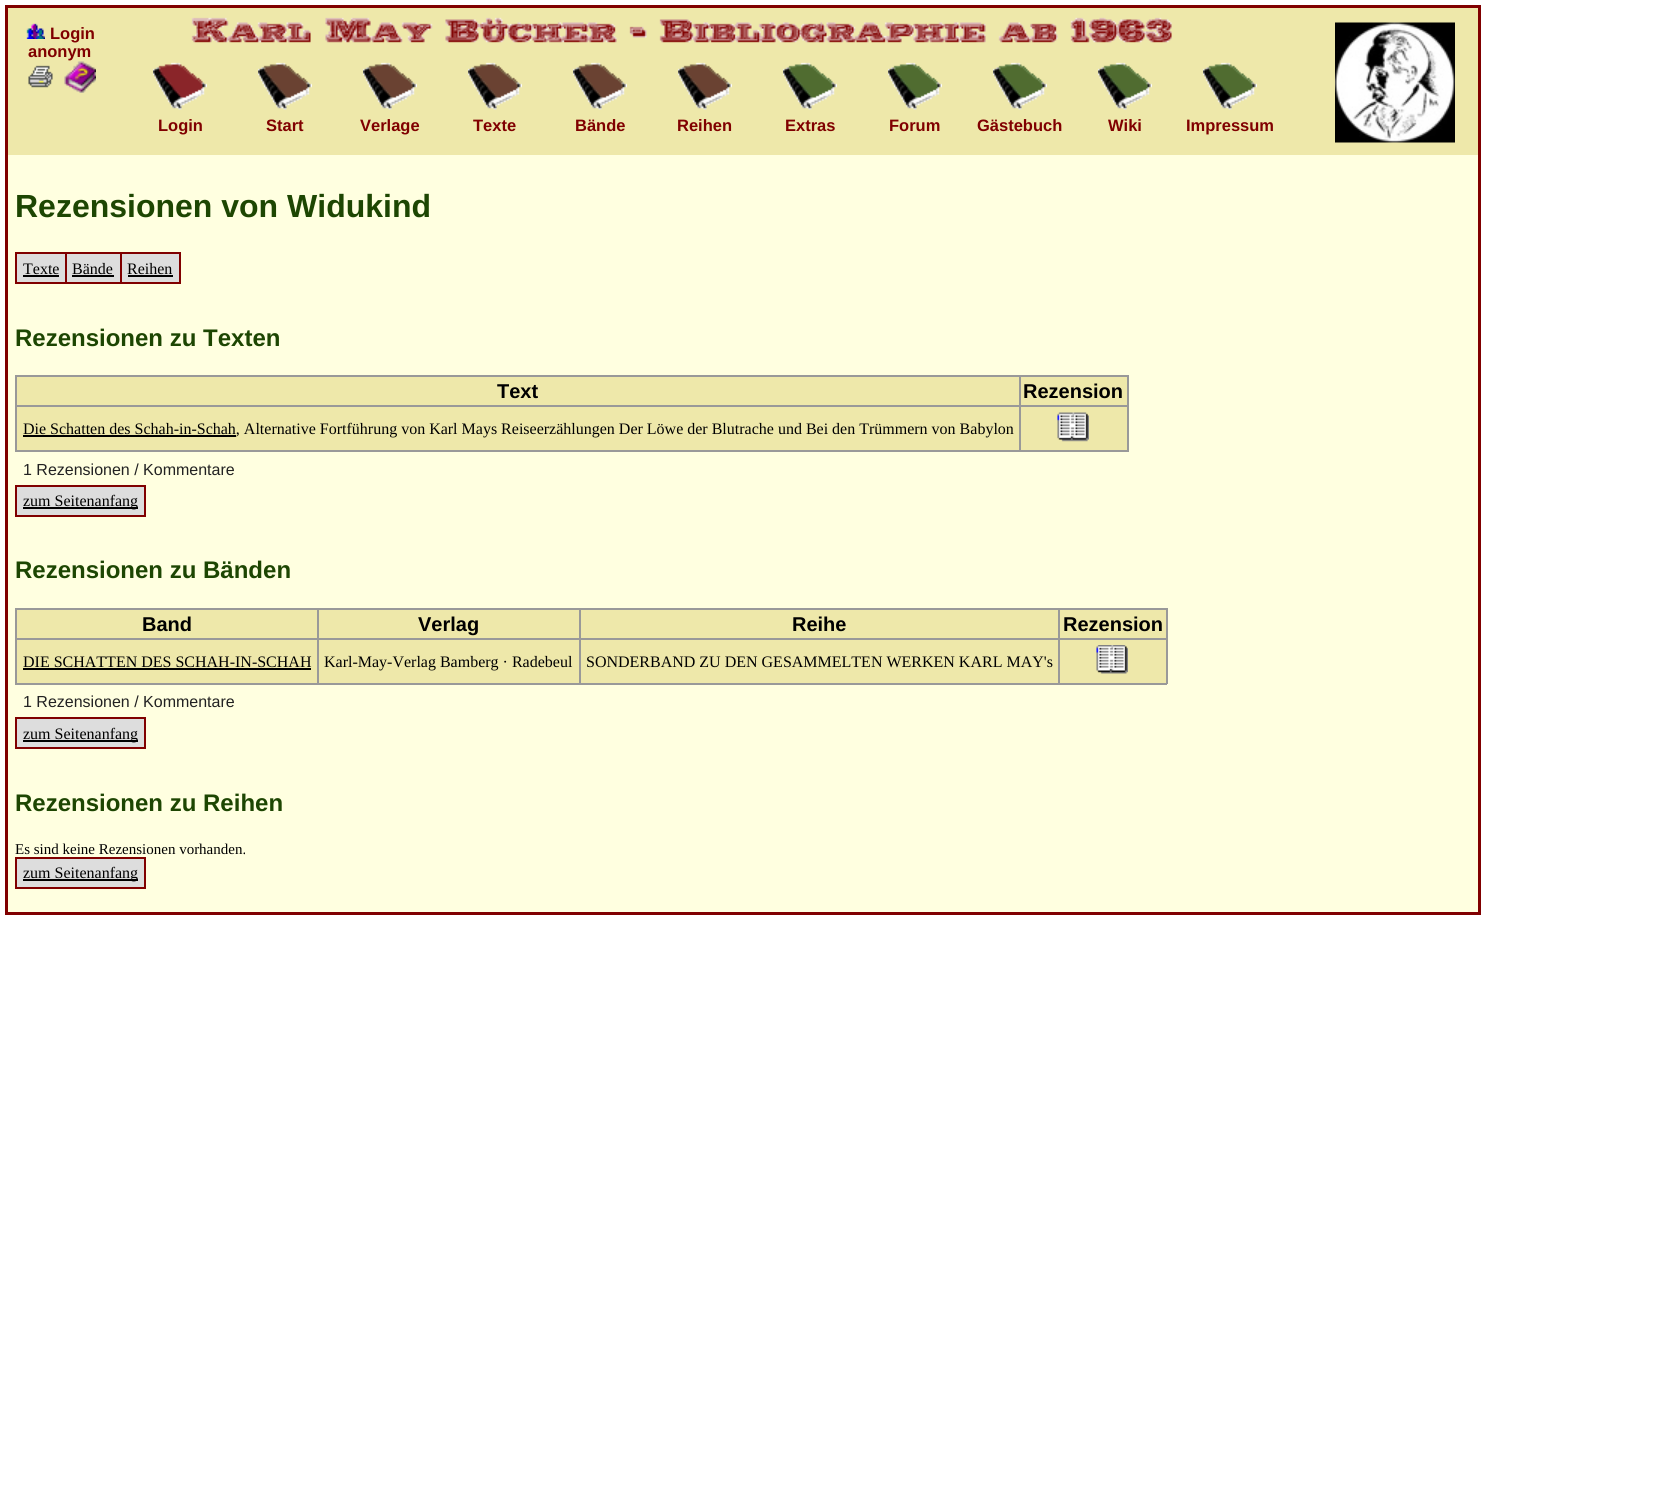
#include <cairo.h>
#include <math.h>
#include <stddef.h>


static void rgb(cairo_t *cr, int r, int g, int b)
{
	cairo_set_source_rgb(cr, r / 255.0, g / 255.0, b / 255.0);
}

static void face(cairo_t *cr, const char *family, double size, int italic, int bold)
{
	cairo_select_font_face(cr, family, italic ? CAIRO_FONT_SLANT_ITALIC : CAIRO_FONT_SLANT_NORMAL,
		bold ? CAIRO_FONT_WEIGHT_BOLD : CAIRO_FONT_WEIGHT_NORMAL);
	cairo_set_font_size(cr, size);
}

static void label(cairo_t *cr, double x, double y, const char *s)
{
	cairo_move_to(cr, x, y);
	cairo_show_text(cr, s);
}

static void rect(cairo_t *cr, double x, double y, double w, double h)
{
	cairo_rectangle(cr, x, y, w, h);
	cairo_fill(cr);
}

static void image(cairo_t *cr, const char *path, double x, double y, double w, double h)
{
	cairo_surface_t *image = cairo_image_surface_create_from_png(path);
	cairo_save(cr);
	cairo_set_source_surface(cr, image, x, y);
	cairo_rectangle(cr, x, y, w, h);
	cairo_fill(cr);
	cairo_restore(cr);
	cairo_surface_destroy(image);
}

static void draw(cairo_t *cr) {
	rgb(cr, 255, 255, 255);
	cairo_paint(cr);
	rgb(cr, 238, 232, 170);
	rect(cr, 8, 8, 1470, 147);
	rgb(cr, 128, 0, 0);
	rect(cr, 5, 5, 1476, 3);
	rect(cr, 1478, 5, 3, 910);
	rect(cr, 5, 5, 3, 153);
	image(cr, "image0.png", 26, 23, 19, 16);
	face(cr, "Liberation Sans", 16.5, 0, 1);
	label(cr, 50, 39, "Login");
	label(cr, 28, 57, "anonym");
	image(cr, "image1.png", 28, 65, 25, 23);
	image(cr, "image2.png", 64, 61, 32, 32);
	image(cr, "image3.png", 191, 17, 981, 26);
	image(cr, "image4.png", 1335, 22, 120, 121);
	image(cr, "image5.png", 153, 62, 54, 48);
	label(cr, 158, 131, "Login");
	image(cr, "image6.png", 258, 62, 54, 48);
	label(cr, 266, 131, "Start");
	image(cr, "image7.png", 363, 62, 54, 48);
	label(cr, 360, 131, "Verlage");
	image(cr, "image8.png", 468, 62, 54, 48);
	label(cr, 473, 131, "Texte");
	image(cr, "image7.png", 573, 62, 54, 48);
	label(cr, 575, 131, "Bände");
	image(cr, "image9.png", 678, 62, 54, 48);
	label(cr, 677, 131, "Reihen");
	image(cr, "image10.png", 783, 62, 54, 48);
	label(cr, 785, 131, "Extras");
	image(cr, "image10.png", 888, 62, 54, 48);
	label(cr, 889, 131, "Forum");
	image(cr, "image10.png", 993, 62, 54, 48);
	label(cr, 977, 131, "Gästebuch");
	image(cr, "image11.png", 1098, 62, 54, 48);
	label(cr, 1108, 131, "Wiki");
	image(cr, "image11.png", 1203, 62, 54, 48);
	label(cr, 1186, 131, "Impressum");
	rgb(cr, 255, 255, 224);
	rect(cr, 8, 155, 1470, 757);
	rgb(cr, 128, 0, 0);
	rect(cr, 5, 912, 1476, 3);
	rect(cr, 5, 155, 3, 760);
	face(cr, "Liberation Sans", 32, 0, 1);
	rgb(cr, 29, 70, 2);
	label(cr, 15, 217, "Rezensionen von Widukind");
	rgb(cr, 128, 0, 0);
	rect(cr, 15, 252, 165, 2);
	rect(cr, 179, 252, 2, 32);
	rect(cr, 15, 282, 165, 2);
	rect(cr, 15, 252, 2, 32);
	rgb(cr, 221, 221, 221);
	rect(cr, 17, 254, 48, 28);
	face(cr, "Liberation Serif", 16, 0, 0);
	rgb(cr, 0, 0, 0);
	label(cr, 23, 274, "Texte");
	rect(cr, 23, 275, 36, 2);
	rgb(cr, 221, 221, 221);
	rect(cr, 67, 254, 53, 28);
	rgb(cr, 128, 0, 0);
	rect(cr, 65, 252, 2, 32);
	rgb(cr, 0, 0, 0);
	label(cr, 72, 274, "Bände");
	rect(cr, 72, 275, 42, 2);
	rgb(cr, 221, 221, 221);
	rect(cr, 122, 254, 57, 28);
	rgb(cr, 128, 0, 0);
	rect(cr, 120, 252, 2, 32);
	rgb(cr, 0, 0, 0);
	label(cr, 127, 274, "Reihen");
	rect(cr, 128, 275, 45, 2);
	face(cr, "Liberation Sans", 24, 0, 1);
	rgb(cr, 29, 70, 2);
	label(cr, 15, 346, "Rezensionen zu Texten");
	rgb(cr, 238, 232, 170);
	rect(cr, 17, 377, 1002, 28);
	rgb(cr, 153, 153, 153);
	rect(cr, 1019, 375, 109, 2);
	rect(cr, 1019, 405, 109, 2);
	rect(cr, 1127, 405, 2, 47);
	rect(cr, 1019, 450, 109, 2);
	rect(cr, 1019, 405, 2, 47);
	rect(cr, 15, 405, 1005, 2);
	rect(cr, 1019, 375, 2, 32);
	rect(cr, 15, 375, 1005, 2);
	rect(cr, 15, 450, 1005, 2);
	rect(cr, 15, 405, 2, 47);
	rect(cr, 15, 375, 2, 32);
	face(cr, "Liberation Sans", 20, 0, 1);
	rgb(cr, 0, 0, 0);
	label(cr, 497, 398, "Text");
	rgb(cr, 238, 232, 170);
	rect(cr, 1021, 377, 106, 28);
	rgb(cr, 153, 153, 153);
	rect(cr, 1127, 375, 2, 32);
	rgb(cr, 0, 0, 0);
	label(cr, 1023, 398, "Rezension");
	rgb(cr, 238, 232, 170);
	rect(cr, 17, 407, 1002, 43);
	rgb(cr, 0, 0, 0);
	rect(cr, 23, 435, 213, 2);
	face(cr, "Liberation Serif", 16, 0, 0);
	label(cr, 23, 434, "Die Schatten des Schah-in-Schah, Alternative Fortführung von Karl Mays Reiseerzählungen Der Löwe der Blutrache und Bei den Trümmern von Babylon");
	rgb(cr, 238, 232, 170);
	rect(cr, 1021, 407, 106, 43);
	image(cr, "image12.png", 1057, 412, 32, 30);
	face(cr, "Liberation Sans", 16, 0, 0);
	rgb(cr, 34, 34, 34);
	label(cr, 23, 475, "1 Rezensionen / Kommentare");
	rgb(cr, 128, 0, 0);
	rect(cr, 15, 485, 131, 2);
	rect(cr, 144, 485, 2, 31);
	rect(cr, 15, 515, 131, 2);
	rect(cr, 15, 485, 2, 31);
	rgb(cr, 221, 221, 221);
	rect(cr, 17, 487, 127, 28);
	rgb(cr, 0, 0, 0);
	rect(cr, 23, 507, 115, 2);
	face(cr, "Liberation Serif", 16, 0, 0);
	label(cr, 23, 506, "zum Seitenanfang");
	face(cr, "Liberation Sans", 24, 0, 1);
	rgb(cr, 29, 70, 2);
	label(cr, 15, 578, "Rezensionen zu Bänden");
	rgb(cr, 238, 232, 170);
	rect(cr, 17, 610, 300, 28);
	rgb(cr, 153, 153, 153);
	rect(cr, 1058, 608, 109, 2);
	rect(cr, 1058, 638, 109, 2);
	rect(cr, 1166, 638, 2, 46);
	rect(cr, 1058, 683, 109, 2);
	rect(cr, 1058, 638, 2, 46);
	rect(cr, 579, 638, 480, 2);
	rect(cr, 1058, 608, 2, 31);
	rect(cr, 579, 608, 480, 2);
	rect(cr, 579, 683, 480, 2);
	rect(cr, 579, 638, 2, 46);
	rect(cr, 317, 638, 264, 2);
	rect(cr, 579, 608, 2, 31);
	rect(cr, 317, 608, 264, 2);
	rect(cr, 317, 683, 264, 2);
	rect(cr, 317, 638, 2, 46);
	rect(cr, 15, 638, 303, 2);
	rect(cr, 317, 608, 2, 31);
	rect(cr, 15, 608, 303, 2);
	rect(cr, 15, 683, 303, 2);
	rect(cr, 15, 638, 2, 46);
	rect(cr, 15, 608, 2, 31);
	face(cr, "Liberation Sans", 20, 0, 1);
	rgb(cr, 0, 0, 0);
	label(cr, 142, 631, "Band");
	rgb(cr, 238, 232, 170);
	rect(cr, 319, 610, 260, 28);
	rgb(cr, 0, 0, 0);
	label(cr, 418, 631, "Verlag");
	rgb(cr, 238, 232, 170);
	rect(cr, 581, 610, 477, 28);
	rgb(cr, 0, 0, 0);
	label(cr, 792, 631, "Reihe");
	rgb(cr, 238, 232, 170);
	rect(cr, 1060, 610, 106, 28);
	rgb(cr, 153, 153, 153);
	rect(cr, 1166, 608, 2, 31);
	rgb(cr, 0, 0, 0);
	label(cr, 1063, 631, "Rezension");
	rgb(cr, 238, 232, 170);
	rect(cr, 17, 640, 300, 43);
	face(cr, "Liberation Serif", 16, 0, 0);
	rgb(cr, 0, 0, 0);
	label(cr, 23, 667, "DIE SCHATTEN DES SCHAH-IN-SCHAH");
	rect(cr, 23, 668, 288, 2);
	rgb(cr, 238, 232, 170);
	rect(cr, 319, 640, 260, 43);
	rgb(cr, 0, 0, 0);
	label(cr, 324, 667, "Karl-May-Verlag Bamberg · Radebeul");
	rgb(cr, 238, 232, 170);
	rect(cr, 581, 640, 477, 43);
	rgb(cr, 0, 0, 0);
	label(cr, 586, 667, "SONDERBAND ZU DEN GESAMMELTEN WERKEN KARL MAY's");
	rgb(cr, 238, 232, 170);
	rect(cr, 1060, 640, 106, 43);
	image(cr, "image13.png", 1096, 645, 32, 29);
	face(cr, "Liberation Sans", 16, 0, 0);
	rgb(cr, 34, 34, 34);
	label(cr, 23, 707, "1 Rezensionen / Kommentare");
	rgb(cr, 128, 0, 0);
	rect(cr, 15, 717, 131, 2);
	rect(cr, 144, 717, 2, 32);
	rect(cr, 15, 747, 131, 2);
	rect(cr, 15, 717, 2, 32);
	rgb(cr, 221, 221, 221);
	rect(cr, 17, 719, 127, 28);
	rgb(cr, 0, 0, 0);
	rect(cr, 23, 740, 115, 2);
	face(cr, "Liberation Serif", 16, 0, 0);
	label(cr, 23, 739, "zum Seitenanfang");
	face(cr, "Liberation Sans", 24, 0, 1);
	rgb(cr, 29, 70, 2);
	label(cr, 15, 811, "Rezensionen zu Reihen");
	face(cr, "Liberation Serif", 15, 0, 0);
	rgb(cr, 0, 0, 0);
	label(cr, 15, 854, "Es sind keine Rezensionen vorhanden.");
	rgb(cr, 128, 0, 0);
	rect(cr, 15, 857, 131, 2);
	rect(cr, 144, 857, 2, 31);
	rect(cr, 15, 887, 131, 2);
	rect(cr, 15, 857, 2, 31);
	rgb(cr, 221, 221, 221);
	rect(cr, 17, 859, 127, 28);
	rgb(cr, 0, 0, 0);
	rect(cr, 23, 879, 115, 2);
	face(cr, "Liberation Serif", 16, 0, 0);
	label(cr, 23, 878, "zum Seitenanfang");
}

int main(void) {
	cairo_surface_t *surface = cairo_image_surface_create(CAIRO_FORMAT_RGB24, 1663, 1495);
	cairo_t *cr = cairo_create(surface);
	cairo_font_options_t *options = cairo_font_options_create();
	cairo_font_options_set_hint_metrics(options, CAIRO_HINT_METRICS_OFF);
	cairo_font_options_set_hint_style(options, CAIRO_HINT_STYLE_NONE);
	cairo_set_font_options(cr, options);
	cairo_set_miter_limit(cr, 4);
	draw(cr);
	cairo_surface_write_to_png(surface, "render.png");
	cairo_font_options_destroy(options);
	cairo_destroy(cr);
	cairo_surface_destroy(surface);
	return 0;
}
